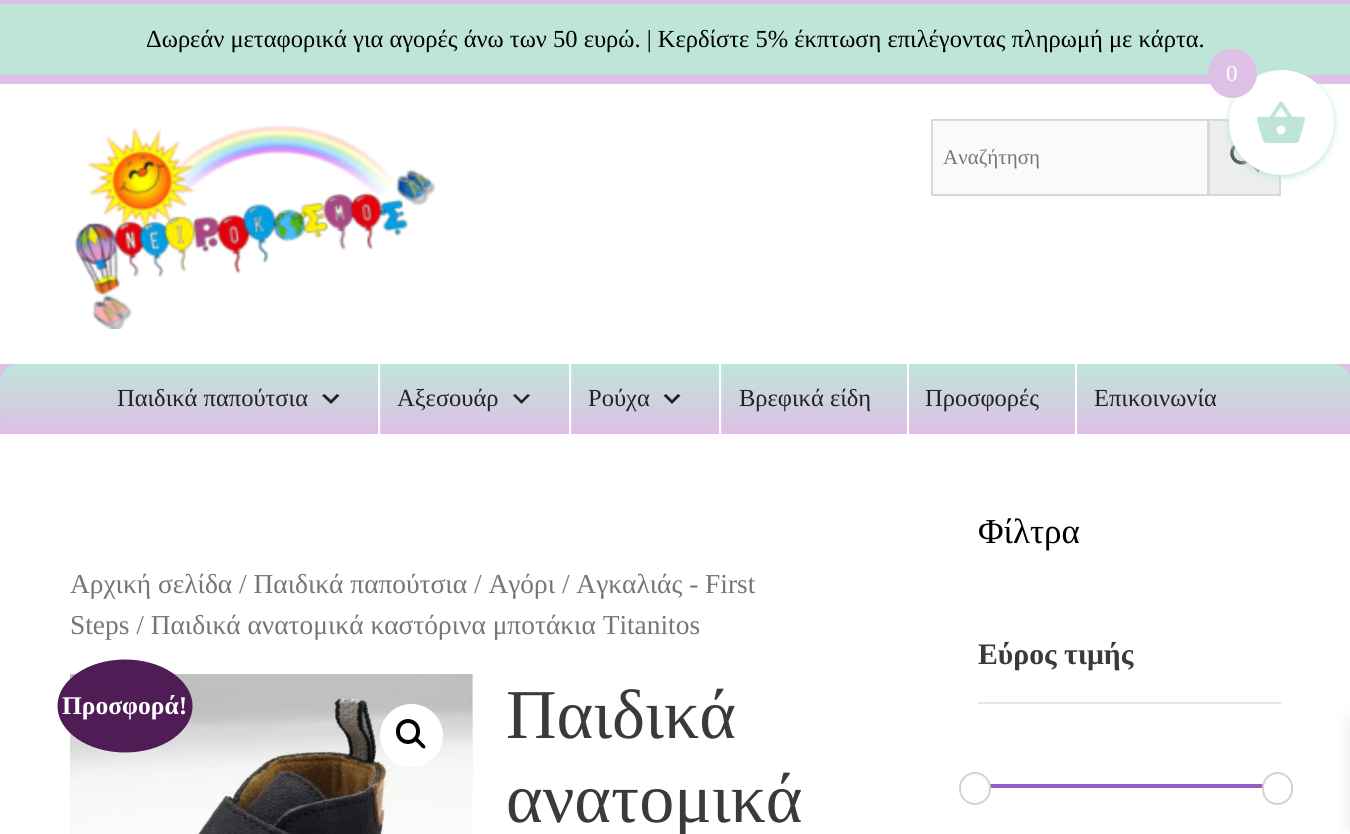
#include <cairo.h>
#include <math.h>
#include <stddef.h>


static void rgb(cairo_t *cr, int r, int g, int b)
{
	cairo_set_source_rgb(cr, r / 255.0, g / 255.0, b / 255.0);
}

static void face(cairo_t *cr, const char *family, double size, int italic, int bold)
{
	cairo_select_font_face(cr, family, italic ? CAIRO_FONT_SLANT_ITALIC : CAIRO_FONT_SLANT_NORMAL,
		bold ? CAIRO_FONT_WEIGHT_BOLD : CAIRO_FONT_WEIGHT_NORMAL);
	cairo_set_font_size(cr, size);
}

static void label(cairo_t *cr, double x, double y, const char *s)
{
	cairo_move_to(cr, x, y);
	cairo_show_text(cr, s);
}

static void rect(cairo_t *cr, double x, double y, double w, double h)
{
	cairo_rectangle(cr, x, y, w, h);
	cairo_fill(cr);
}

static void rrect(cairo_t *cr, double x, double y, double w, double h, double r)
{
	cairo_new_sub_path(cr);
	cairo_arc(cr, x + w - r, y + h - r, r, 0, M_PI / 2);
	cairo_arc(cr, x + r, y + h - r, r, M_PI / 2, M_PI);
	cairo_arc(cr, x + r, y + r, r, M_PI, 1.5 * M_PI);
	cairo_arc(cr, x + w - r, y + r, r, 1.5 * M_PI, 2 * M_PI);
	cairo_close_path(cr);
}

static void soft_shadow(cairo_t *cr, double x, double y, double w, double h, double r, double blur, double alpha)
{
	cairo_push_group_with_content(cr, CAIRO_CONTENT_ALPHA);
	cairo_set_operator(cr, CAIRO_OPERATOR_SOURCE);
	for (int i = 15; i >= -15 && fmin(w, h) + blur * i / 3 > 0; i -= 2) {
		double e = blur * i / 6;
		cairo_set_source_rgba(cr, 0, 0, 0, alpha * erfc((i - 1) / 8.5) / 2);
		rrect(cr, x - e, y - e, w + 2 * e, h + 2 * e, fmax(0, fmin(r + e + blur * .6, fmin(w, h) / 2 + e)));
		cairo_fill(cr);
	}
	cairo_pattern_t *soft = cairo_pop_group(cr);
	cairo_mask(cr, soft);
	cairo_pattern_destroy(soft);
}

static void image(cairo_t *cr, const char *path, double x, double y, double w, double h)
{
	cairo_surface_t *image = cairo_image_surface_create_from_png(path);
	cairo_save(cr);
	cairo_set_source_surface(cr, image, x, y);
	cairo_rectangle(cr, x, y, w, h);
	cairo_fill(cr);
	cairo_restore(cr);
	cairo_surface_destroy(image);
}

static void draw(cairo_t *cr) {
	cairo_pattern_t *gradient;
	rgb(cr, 255, 255, 255);
	cairo_paint(cr);
	rgb(cr, 191, 229, 217);
	rect(cr, 0, 4, 1350, 71);
	rgb(cr, 222, 191, 229);
	rect(cr, 0, 0, 1350, 4);
	rect(cr, 0, 75, 1350, 9);
	face(cr, "Liberation Serif", 24.5, 0, 0);
	rgb(cr, 0, 0, 0);
	label(cr, 146, 47, "Δωρεάν μεταφορικά για αγορές άνω των 50 ευρώ. | Κερδίστε 5% έκπτωση επιλέγοντας πληρωμή με κάρτα.");
	rgb(cr, 237, 237, 237);
	cairo_rectangle(cr, 1209, 120, 71, 75);
	cairo_fill_preserve(cr);
	rgb(cr, 216, 216, 216);
	cairo_stroke(cr);
	image(cr, "image2.png", 1230, 144, 31, 29);
	rgb(cr, 191, 229, 217);
	soft_shadow(cr, 1229, 72, 105, 105, 52.5, 3.5, 1);
	rgb(cr, 255, 255, 255);
	cairo_arc(cr, 1281.5, 122.5, 52.5, 0, 2 * M_PI);
	cairo_fill(cr);
	rgb(cr, 222, 191, 229);
	cairo_arc(cr, 1232.5, 73.5, 24.5, 0, 2 * M_PI);
	cairo_fill(cr);
	face(cr, "Liberation Serif", 23, 0, 0);
	rgb(cr, 255, 255, 255);
	label(cr, 1226, 81, "0");
	image(cr, "image0.png", 1257, 101, 48, 43);
	rgb(cr, 0, 0, 0);
	soft_shadow(cr, 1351, 721, 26, 105, 0, 9, 0.1);
	image(cr, "image1.png", 75, 125, 361, 204);
	rgb(cr, 250, 250, 250);
	cairo_rectangle(cr, 932, 120, 276, 75);
	cairo_fill_preserve(cr);
	rgb(cr, 216, 216, 216);
	cairo_stroke(cr);
	face(cr, "Liberation Serif", 21, 0, 0);
	rgb(cr, 118, 118, 118);
	label(cr, 943, 164, "Αναζήτηση");
	rgb(cr, 222, 191, 229);
	rect(cr, 0, 364, 1350, 70);
	gradient = cairo_pattern_create_linear(676, 364, 676, 434);
	cairo_pattern_add_color_stop_rgba(gradient, 0, 0.749, 0.898, 0.851, 1);
	cairo_pattern_add_color_stop_rgba(gradient, 1, 0.871, 0.749, 0.898, 1);
	cairo_set_source(cr, gradient);
	cairo_pattern_destroy(gradient);
	rrect(cr, 0, 364, 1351, 70, 18);
	cairo_fill(cr);
	gradient = cairo_pattern_create_linear(676, 364, 676, 434);
	cairo_pattern_add_color_stop_rgba(gradient, 0, 0.773, 0.91, 0.867, 1);
	cairo_pattern_add_color_stop_rgba(gradient, 1, 0.882, 0.773, 0.91, 1);
	cairo_set_source(cr, gradient);
	cairo_pattern_destroy(gradient);
	rect(cr, 1077, 364, 1, 70);
	rect(cr, 909, 364, 1, 70);
	rect(cr, 721, 364, 2, 70);
	rect(cr, 571, 364, 2, 70);
	rect(cr, 380, 364, 2, 70);
	face(cr, "Liberation Serif", 24.5, 0, 0);
	rgb(cr, 34, 34, 34);
	label(cr, 117, 406, "Παιδικά παπούτσια");
	cairo_new_path(cr);
	cairo_move_to(cr, 324.5, 394);
	cairo_line_to(cr, 331, 400);
	cairo_line_to(cr, 337, 394);
	cairo_line_to(cr, 339.5, 395.5);
	cairo_line_to(cr, 331, 404);
	cairo_line_to(cr, 322, 395.5);
	cairo_close_path(cr);
	cairo_fill(cr);
	rgb(cr, 255, 255, 255);
	rect(cr, 378, 364, 2, 70);
	rgb(cr, 34, 34, 34);
	label(cr, 397, 406, "Αξεσουάρ");
	image(cr, "image3.png", 513, 394, 17, 10);
	rgb(cr, 255, 255, 255);
	rect(cr, 569, 364, 2, 70);
	rgb(cr, 34, 34, 34);
	label(cr, 588, 406, "Ρούχα");
	cairo_new_path(cr);
	cairo_move_to(cr, 666, 394);
	cairo_line_to(cr, 672, 400);
	cairo_line_to(cr, 678, 394);
	cairo_line_to(cr, 680.5, 395.5);
	cairo_line_to(cr, 672, 404);
	cairo_line_to(cr, 663.5, 395.5);
	cairo_close_path(cr);
	cairo_fill(cr);
	rgb(cr, 255, 255, 255);
	rect(cr, 719, 364, 2, 70);
	rgb(cr, 34, 34, 34);
	label(cr, 739, 406, "Βρεφικά είδη");
	rgb(cr, 255, 255, 255);
	rect(cr, 907, 364, 2, 70);
	rgb(cr, 34, 34, 34);
	label(cr, 925, 406, "Προσφορές");
	rgb(cr, 255, 255, 255);
	rect(cr, 1075, 364, 2, 70);
	rgb(cr, 34, 34, 34);
	label(cr, 1094, 406, "Επικοινωνία");
	face(cr, "Liberation Serif", 27.4, 0, 0);
	rgb(cr, 118, 118, 118);
	label(cr, 70, 593, "Αρχική σελίδα / Παιδικά παπούτσια / Αγόρι / Αγκαλιάς - First");
	label(cr, 70, 634, "Steps / Παιδικά ανατομικά καστόρινα μποτάκια Titanitos");
	image(cr, "image4.png", 472, 673, 1, 122);
	image(cr, "image5.png", 70, 674, 403, 160);
	rgb(cr, 255, 255, 255);
	cairo_arc(cr, 411.5, 735.5, 31.5, 0, 2 * M_PI);
	cairo_fill(cr);
	rrect(cr, 398, 721, 20, 21, 10);
	rgb(cr, 0, 0, 0);
	cairo_set_line_width(cr, 4);
	cairo_stroke(cr);
	cairo_new_path(cr);
	cairo_move_to(cr, 415, 738);
	cairo_curve_to(cr, 417, 736, 420, 740.5, 421, 741.5);
	cairo_curve_to(cr, 422, 743, 427, 746, 425, 748);
	cairo_curve_to(cr, 423, 750, 419.5, 745, 418.5, 744);
	cairo_curve_to(cr, 417.5, 743, 413, 740, 415, 738);
	cairo_close_path(cr);
	cairo_fill(cr);
	face(cr, "Liberation Serif", 70, 0, 0);
	rgb(cr, 58, 58, 58);
	label(cr, 506, 738, "Παιδικά");
	label(cr, 506, 822, "ανατομικά");
	rgb(cr, 79, 28, 85);
	cairo_new_path(cr);
	cairo_move_to(cr, 125, 659.5);
	cairo_curve_to(cr, 162.5, 659.5, 192.5, 680.5, 192.5, 706);
	cairo_curve_to(cr, 192.5, 731.5, 162.5, 752.5, 125, 752.5);
	cairo_curve_to(cr, 87.5, 752.5, 57.5, 731.5, 57.5, 706);
	cairo_curve_to(cr, 57.5, 680.5, 87.5, 659.5, 125, 659.5);
	cairo_close_path(cr);
	cairo_fill(cr);
	face(cr, "Liberation Serif", 25.5, 0, 1);
	rgb(cr, 255, 255, 255);
	label(cr, 62, 714, "Προσφορά!");
	face(cr, "Liberation Serif", 35, 0, 0);
	rgb(cr, 0, 0, 0);
	label(cr, 978, 543, "Φίλτρα");
	rgb(cr, 230, 230, 230);
	rect(cr, 978, 702, 303, 2);
	face(cr, "Liberation Serif", 29.75, 0, 1);
	rgb(cr, 58, 58, 58);
	label(cr, 978, 664, "Εύρος τιμής");
	rgb(cr, 151, 93, 195);
	rect(cr, 990, 784, 273, 4);
	rgb(cr, 255, 255, 255);
	rrect(cr, 960, 773, 30, 31, 15);
	cairo_fill_preserve(cr);
	rgb(cr, 211, 211, 211);
	cairo_set_line_width(cr, 2);
	cairo_stroke(cr);
	rgb(cr, 255, 255, 255);
	rrect(cr, 1263, 773, 29, 31, 14.5);
	cairo_fill_preserve(cr);
	rgb(cr, 211, 211, 211);
	cairo_stroke(cr);
}

int main(void) {
	cairo_surface_t *surface = cairo_image_surface_create(CAIRO_FORMAT_RGB24, 1350, 834);
	cairo_t *cr = cairo_create(surface);
	cairo_font_options_t *options = cairo_font_options_create();
	cairo_font_options_set_hint_metrics(options, CAIRO_HINT_METRICS_OFF);
	cairo_font_options_set_hint_style(options, CAIRO_HINT_STYLE_NONE);
	cairo_set_font_options(cr, options);
	cairo_set_miter_limit(cr, 4);
	draw(cr);
	cairo_surface_write_to_png(surface, "render.png");
	cairo_font_options_destroy(options);
	cairo_destroy(cr);
	cairo_surface_destroy(surface);
	return 0;
}
